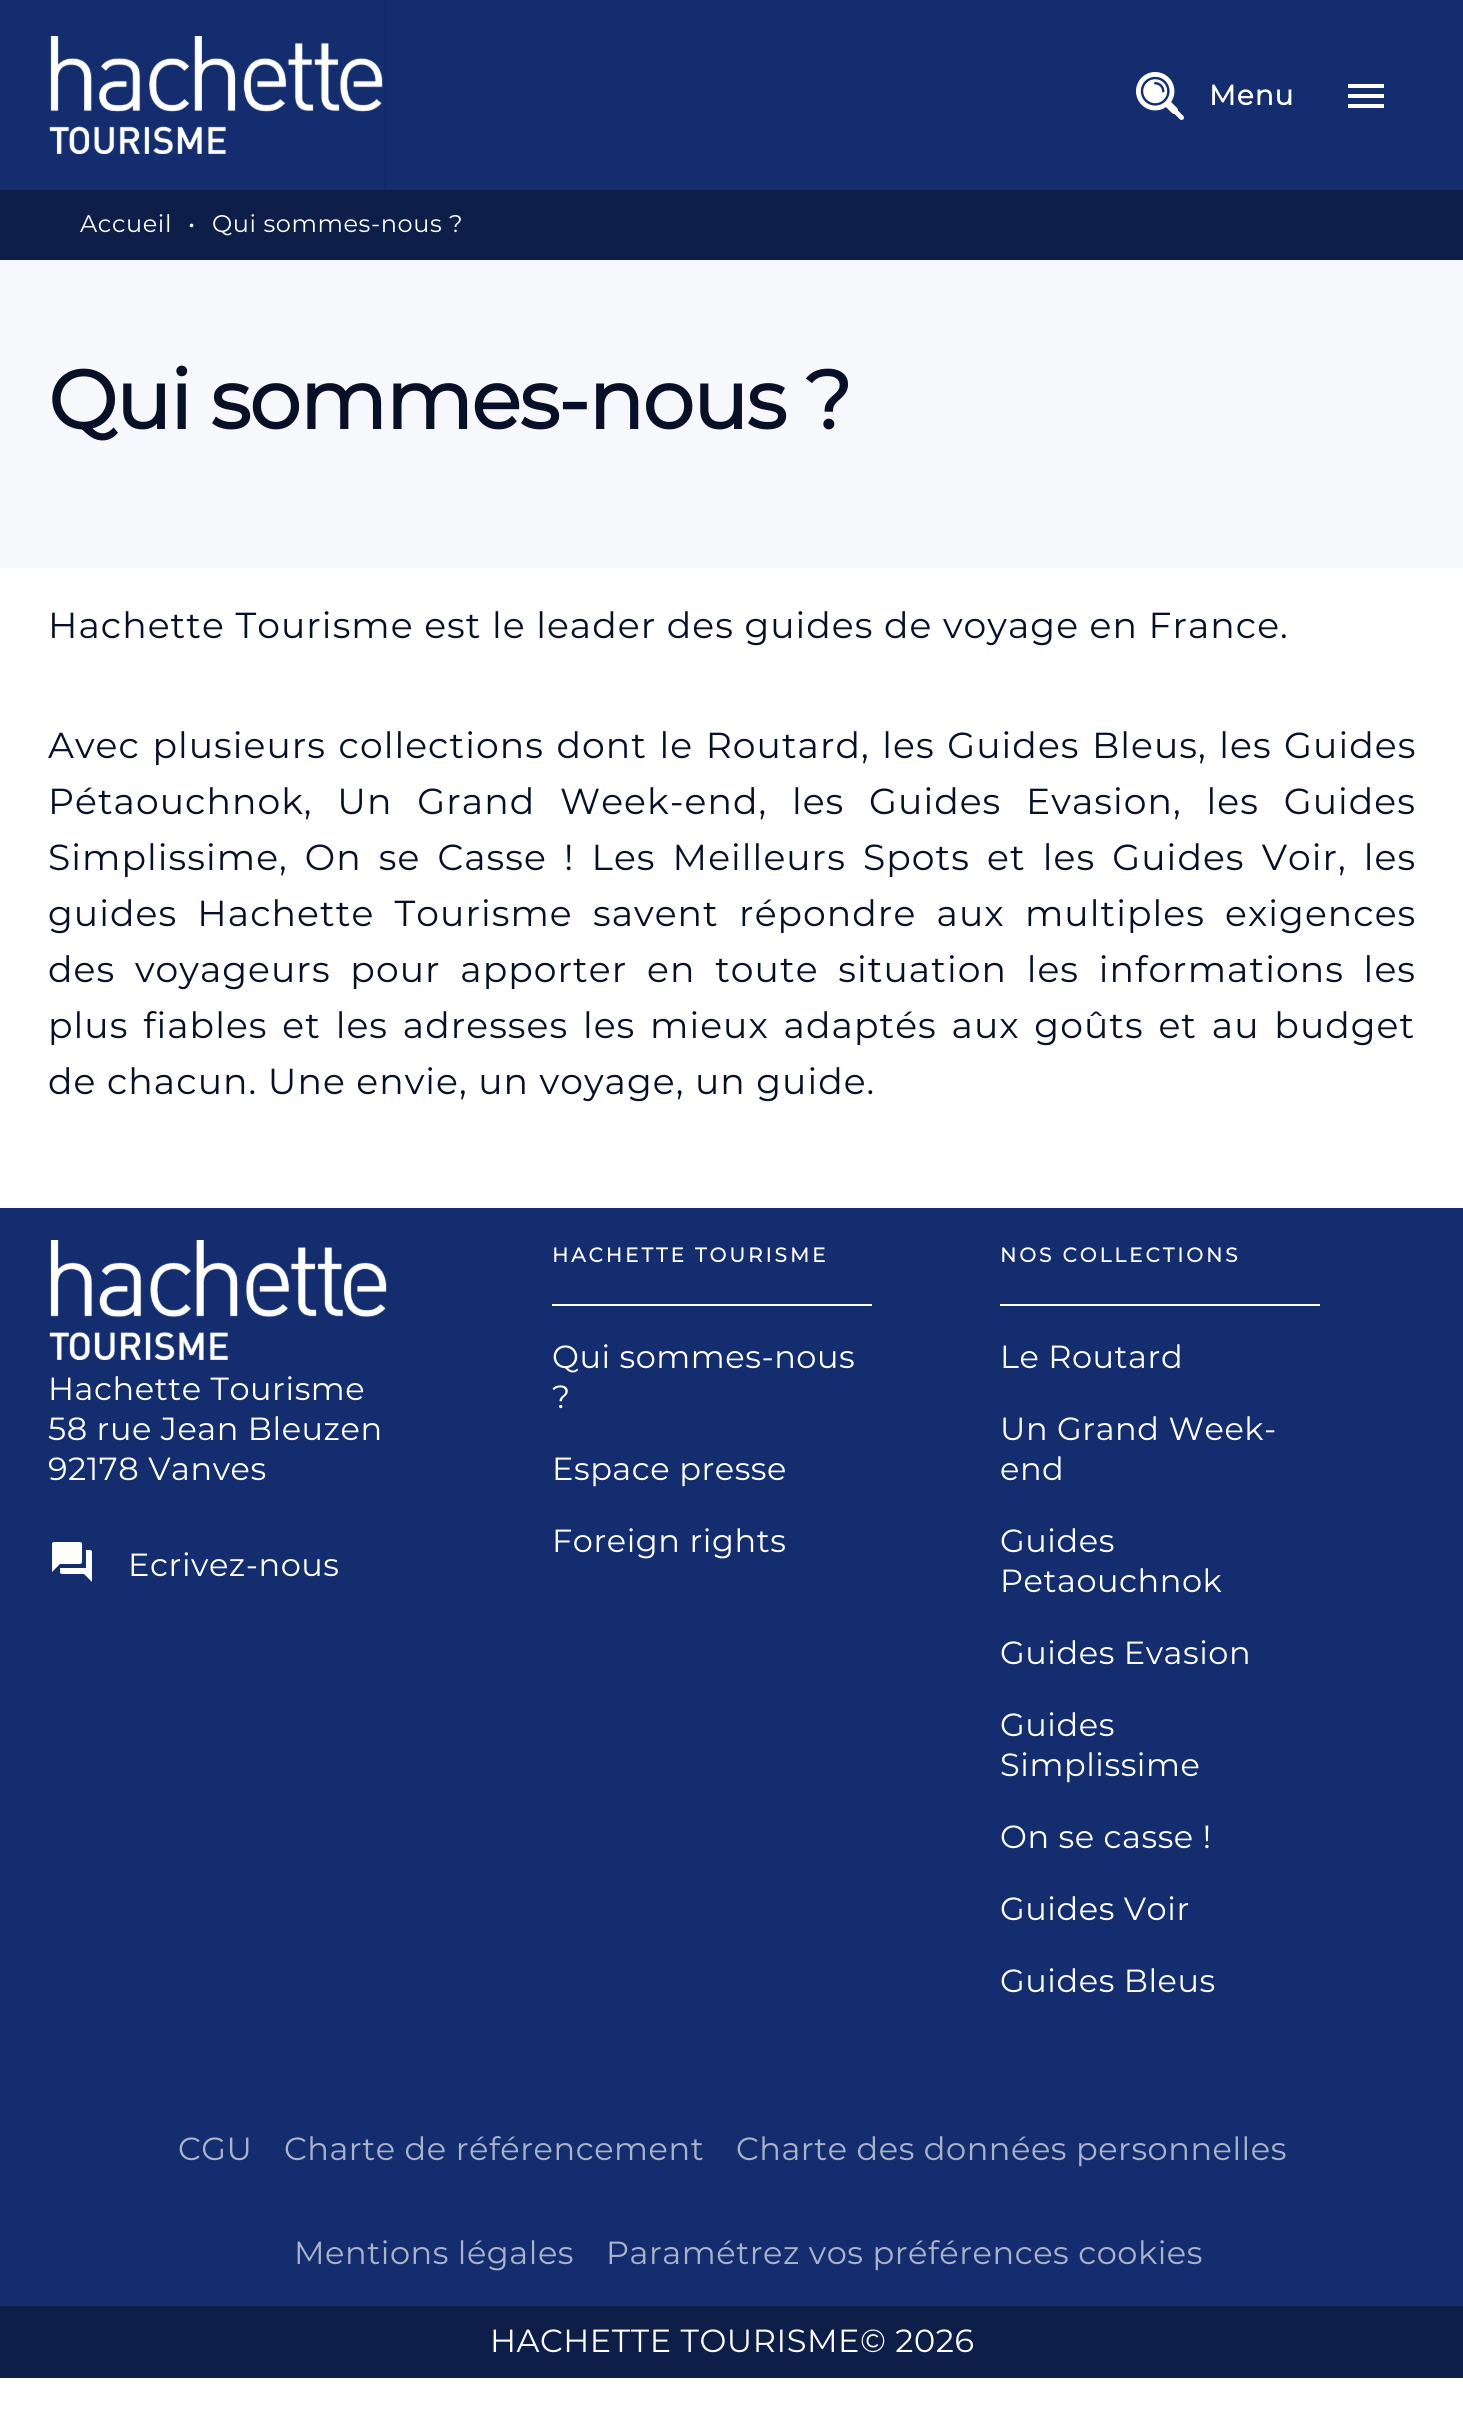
#include <cairo.h>
#include <math.h>
#include <stddef.h>


static void rgb(cairo_t *cr, int r, int g, int b)
{
	cairo_set_source_rgb(cr, r / 255.0, g / 255.0, b / 255.0);
}

static void face(cairo_t *cr, const char *family, double size, int italic, int bold)
{
	cairo_select_font_face(cr, family, italic ? CAIRO_FONT_SLANT_ITALIC : CAIRO_FONT_SLANT_NORMAL,
		bold ? CAIRO_FONT_WEIGHT_BOLD : CAIRO_FONT_WEIGHT_NORMAL);
	cairo_set_font_size(cr, size);
}

static void tracked(cairo_t *cr, double x, double y, const char *s, double letter, double word)
{
	cairo_move_to(cr, x, y);
	while (*s) {
		char ch[5] = {0};
		int n = 0;
		do ch[n++] = *s++; while ((*s & 0xC0) == 0x80);
		cairo_show_text(cr, ch);
		cairo_rel_move_to(cr, letter + word * (*ch == ' '), 0);
	}
}

static void rect(cairo_t *cr, double x, double y, double w, double h)
{
	cairo_rectangle(cr, x, y, w, h);
	cairo_fill(cr);
}

static void image(cairo_t *cr, const char *path, double x, double y, double w, double h)
{
	cairo_surface_t *image = cairo_image_surface_create_from_png(path);
	cairo_save(cr);
	cairo_set_source_surface(cr, image, x, y);
	cairo_rectangle(cr, x, y, w, h);
	cairo_fill(cr);
	cairo_restore(cr);
	cairo_surface_destroy(image);
}

static void draw(cairo_t *cr) {
	rgb(cr, 255, 255, 255);
	cairo_paint(cr);
	rgb(cr, 20, 45, 110);
	rect(cr, 0, 0, 1463, 190);
	rgb(cr, 18, 41, 101);
	rect(cr, 384, 0, 2, 190);
	image(cr, "image0.png", 49, 36, 334, 118);
	image(cr, "image1.png", 1136, 72, 48, 48);
	face(cr, "Montserrat", 28, 0, 1);
	rgb(cr, 255, 255, 255);
	tracked(cr, 1209, 105, "Menu", 1, 0);
	cairo_new_path(cr);
	cairo_move_to(cr, 1348, 84);
	cairo_line_to(cr, 1384, 84);
	cairo_line_to(cr, 1384, 88);
	cairo_line_to(cr, 1348, 88);
	cairo_close_path(cr);
	cairo_move_to(cr, 1348, 98);
	cairo_line_to(cr, 1348, 94);
	cairo_line_to(cr, 1384, 94);
	cairo_line_to(cr, 1384, 98);
	cairo_close_path(cr);
	cairo_move_to(cr, 1348, 108);
	cairo_line_to(cr, 1348, 104);
	cairo_line_to(cr, 1384, 104);
	cairo_line_to(cr, 1384, 108);
	cairo_close_path(cr);
	cairo_fill(cr);
	rgb(cr, 13, 30, 73);
	rect(cr, 0, 190, 1463, 70);
	face(cr, "Montserrat Thin", 24, 0, 0);
	rgb(cr, 255, 255, 255);
	tracked(cr, 80, 232, "Accueil", 0.6, 0);
	tracked(cr, 188, 232, "•", 1.05, 0);
	tracked(cr, 212, 232, "Qui sommes-nous ?", 0.6, 0);
	rgb(cr, 246, 248, 252);
	rect(cr, 0, 260, 1463, 308);
	face(cr, "Montserrat", 82.25, 0, 1);
	rgb(cr, 7, 16, 39);
	tracked(cr, 48, 429, "Qui sommes-nous ?", -1.4, 0);
	face(cr, "Montserrat Thin", 36.15, 0, 0);
	tracked(cr, 48, 638, "Hachette Tourisme est le leader des guides de voyage en France.", 1.05, 0);
	tracked(cr, 48, 758, "Avec plusieurs collections dont le Routard, les Guides Bleus, les Guides", 1.05, 2);
	tracked(cr, 48, 814, "Pétaouchnok, Un Grand Week-end, les Guides Evasion, les Guides", 1.05, 14.25);
	tracked(cr, 48, 870, "Simplissime, On se Casse ! Les Meilleurs Spots et les Guides Voir, les", 1.05, 6.6);
	tracked(cr, 48, 926, "guides Hachette Tourisme savent répondre aux multiples exigences", 1.05, 9.75);
	tracked(cr, 48, 982, "des voyageurs pour apporter en toute situation les informations les", 1.05, 9.25);
	tracked(cr, 48, 1038, "plus fiables et les adresses les mieux adaptés aux goûts et au budget", 1.05, 4.25);
	tracked(cr, 48, 1094, "de chacun. Une envie, un voyage, un guide.", 1.05, 0);
	rgb(cr, 20, 45, 110);
	rect(cr, 0, 1208, 1463, 1098);
	image(cr, "image2.png", 49, 1240, 338, 120);
	face(cr, "Montserrat Thin", 32, 0, 0);
	rgb(cr, 255, 255, 255);
	tracked(cr, 48, 1400, "Hachette Tourisme", 0.55, 0);
	tracked(cr, 48, 1440, "58 rue Jean Bleuzen", 0.55, 0);
	tracked(cr, 48, 1480, "92178 Vanves", 0.55, 0);
	image(cr, "image3.png", 52, 1542, 40, 40);
	tracked(cr, 128, 1576, "Ecrivez-nous", 0.55, 0);
	rect(cr, 552, 1304, 320, 2);
	face(cr, "Montserrat", 20, 0, 1);
	tracked(cr, 552, 1262, "HACHETTE TOURISME", 3, 0);
	face(cr, "Montserrat Thin", 32, 0, 0);
	tracked(cr, 552, 1368, "Qui sommes-nous", 0.55, 0);
	tracked(cr, 552, 1408, "?", 0.55, 0);
	tracked(cr, 552, 1480, "Espace presse", 0.55, 0);
	tracked(cr, 552, 1552, "Foreign rights", 0.55, 0);
	rect(cr, 1000, 1304, 320, 2);
	face(cr, "Montserrat", 20, 0, 1);
	tracked(cr, 1000, 1262, "NOS COLLECTIONS", 3, 0);
	face(cr, "Montserrat Thin", 32, 0, 0);
	tracked(cr, 1000, 1368, "Le Routard", 0.55, 0);
	tracked(cr, 1000, 1440, "Un Grand Week-", 0.55, 0);
	tracked(cr, 1000, 1480, "end", 0.55, 0);
	tracked(cr, 1000, 1552, "Guides", 0.55, 0);
	tracked(cr, 1000, 1592, "Petaouchnok", 0.55, 0);
	tracked(cr, 1000, 1664, "Guides Evasion", 0.55, 0);
	tracked(cr, 1000, 1736, "Guides", 0.55, 0);
	tracked(cr, 1000, 1776, "Simplissime", 0.55, 0);
	tracked(cr, 1000, 1848, "On se casse !", 0.55, 0);
	tracked(cr, 1000, 1920, "Guides Voir", 0.55, 0);
	tracked(cr, 1000, 1992, "Guides Bleus", 0.55, 0);
	rgb(cr, 170, 179, 203);
	tracked(cr, 178, 2160, "CGU", 0.55, 0);
	tracked(cr, 284, 2160, "Charte de référencement", 0.55, 0);
	tracked(cr, 736, 2160, "Charte des données personnelles", 0.55, 0);
	tracked(cr, 294, 2264, "Mentions légales", 0.55, 0);
	tracked(cr, 606, 2264, "Paramétrez vos préférences cookies", 0.55, 0);
	rgb(cr, 13, 30, 73);
	rect(cr, 0, 2306, 1463, 72);
	rgb(cr, 255, 255, 255);
	tracked(cr, 490, 2352, "HACHETTE TOURISME© 2026", 0.55, 0);
}

int main(void) {
	cairo_surface_t *surface = cairo_image_surface_create(CAIRO_FORMAT_RGB24, 1463, 2415);
	cairo_t *cr = cairo_create(surface);
	cairo_font_options_t *options = cairo_font_options_create();
	cairo_font_options_set_hint_metrics(options, CAIRO_HINT_METRICS_OFF);
	cairo_font_options_set_hint_style(options, CAIRO_HINT_STYLE_NONE);
	cairo_set_font_options(cr, options);
	cairo_set_miter_limit(cr, 4);
	draw(cr);
	cairo_surface_write_to_png(surface, "render.png");
	cairo_font_options_destroy(options);
	cairo_destroy(cr);
	cairo_surface_destroy(surface);
	return 0;
}
